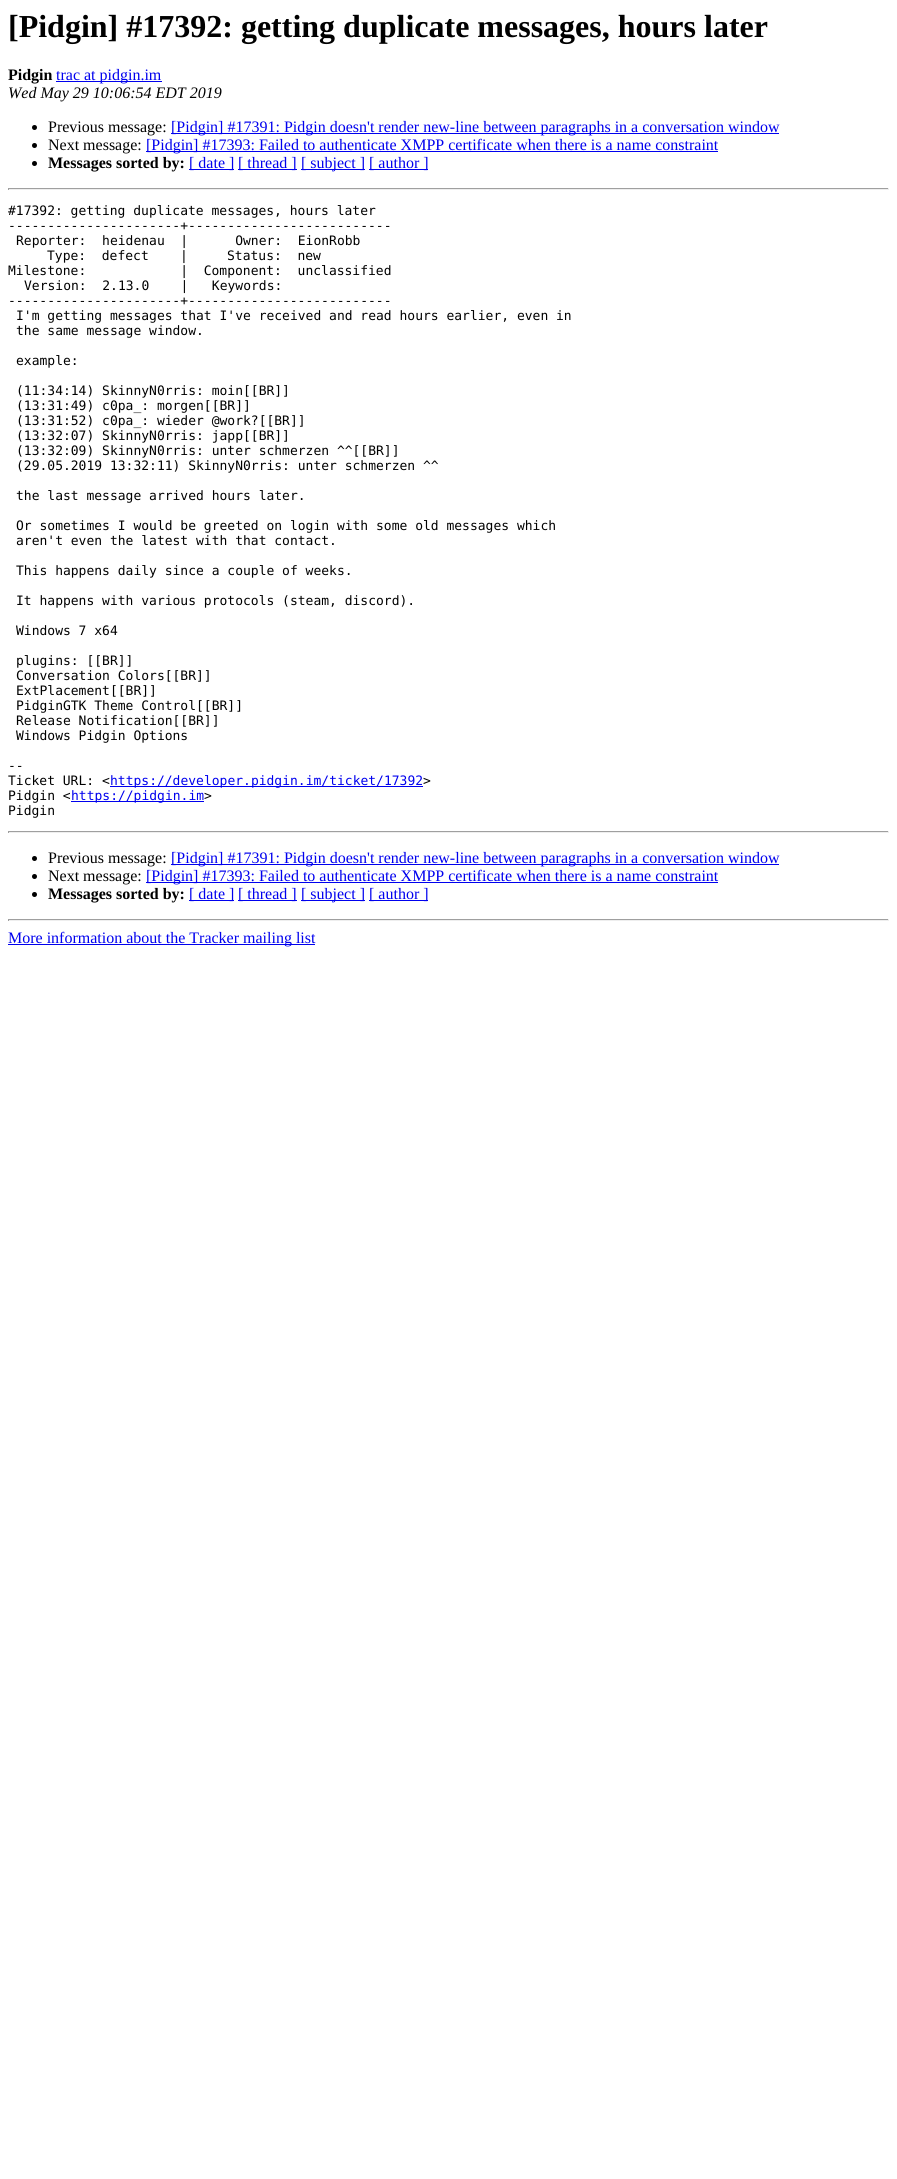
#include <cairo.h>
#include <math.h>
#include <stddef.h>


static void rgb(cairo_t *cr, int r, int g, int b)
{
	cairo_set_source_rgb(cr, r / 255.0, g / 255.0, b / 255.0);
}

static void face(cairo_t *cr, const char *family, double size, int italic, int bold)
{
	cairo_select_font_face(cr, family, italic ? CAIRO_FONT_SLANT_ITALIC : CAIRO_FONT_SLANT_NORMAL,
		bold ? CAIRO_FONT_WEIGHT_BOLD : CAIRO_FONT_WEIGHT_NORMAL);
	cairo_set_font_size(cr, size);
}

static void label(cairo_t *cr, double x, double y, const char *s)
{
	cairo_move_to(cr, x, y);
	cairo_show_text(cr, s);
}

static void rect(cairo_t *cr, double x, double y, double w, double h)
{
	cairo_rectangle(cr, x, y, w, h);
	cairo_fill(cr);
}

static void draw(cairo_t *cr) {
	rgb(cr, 255, 255, 255);
	cairo_paint(cr);
	face(cr, "Liberation Serif", 32, 0, 1);
	rgb(cr, 0, 0, 0);
	label(cr, 8, 37, "[Pidgin] #17392: getting duplicate messages, hours later");
	face(cr, "Liberation Serif", 16, 0, 1);
	label(cr, 8, 80, "Pidgin");
	rgb(cr, 0, 0, 238);
	rect(cr, 56, 81, 106, 1);
	face(cr, "Liberation Serif", 16, 0, 0);
	label(cr, 56, 80, "trac at pidgin.im");
	face(cr, "Liberation Serif", 16, 1, 0);
	rgb(cr, 0, 0, 0);
	label(cr, 8, 98, "Wed May 29 10:06:54 EDT 2019");
	cairo_new_path(cr);
	cairo_arc(cr, 34.5, 127.5, 2.5, 0, 2 * M_PI);
	cairo_fill(cr);
	face(cr, "Liberation Serif", 16, 0, 0);
	label(cr, 48, 132, "Previous message:");
	rgb(cr, 0, 0, 238);
	rect(cr, 171, 133, 608, 1);
	label(cr, 171, 132, "[Pidgin] #17391: Pidgin doesn't render new-line between paragraphs in a conversation window");
	rgb(cr, 0, 0, 0);
	cairo_new_path(cr);
	cairo_arc(cr, 34.5, 145.5, 2.5, 0, 2 * M_PI);
	cairo_fill(cr);
	label(cr, 48, 150, "Next message:");
	rgb(cr, 0, 0, 238);
	rect(cr, 146, 151, 572, 1);
	label(cr, 146, 150, "[Pidgin] #17393: Failed to authenticate XMPP certificate when there is a name constraint");
	rgb(cr, 0, 0, 0);
	cairo_new_path(cr);
	cairo_arc(cr, 34.5, 163.5, 2.5, 0, 2 * M_PI);
	cairo_fill(cr);
	face(cr, "Liberation Serif", 16, 0, 1);
	label(cr, 48, 168, "Messages sorted by:");
	rgb(cr, 0, 0, 238);
	rect(cr, 189, 169, 45, 1);
	face(cr, "Liberation Serif", 16, 0, 0);
	label(cr, 189, 168, "[ date ]");
	rect(cr, 238, 169, 59, 1);
	label(cr, 238, 168, "[ thread ]");
	rect(cr, 301, 169, 64, 1);
	label(cr, 301, 168, "[ subject ]");
	rect(cr, 369, 169, 59, 1);
	label(cr, 369, 168, "[ author ]");
	rgb(cr, 159, 159, 159);
	rect(cr, 8, 188, 881, 1);
	rgb(cr, 238, 238, 238);
	rect(cr, 888, 188, 1, 2);
	rect(cr, 8, 189, 881, 1);
	rgb(cr, 159, 159, 159);
	rect(cr, 8, 188, 1, 2);
	face(cr, "DejaVu Sans Mono", 13, 0, 0);
	rgb(cr, 0, 0, 0);
	label(cr, 8, 215, "#17392: getting duplicate messages, hours later");
	label(cr, 8, 230, "----------------------+--------------------------");
	label(cr, 16, 245, "Reporter:  heidenau  |      Owner:  EionRobb");
	label(cr, 47, 260, "Type:  defect    |     Status:  new");
	label(cr, 8, 275, "Milestone:            |  Component:  unclassified");
	label(cr, 24, 290, "Version:  2.13.0    |   Keywords:");
	label(cr, 8, 305, "----------------------+--------------------------");
	label(cr, 16, 320, "I'm getting messages that I've received and read hours earlier, even in");
	label(cr, 16, 335, "the same message window.");
	label(cr, 16, 365, "example:");
	label(cr, 16, 395, "(11:34:14) SkinnyN0rris: moin[[BR]]");
	label(cr, 16, 410, "(13:31:49) c0pa_: morgen[[BR]]");
	label(cr, 16, 425, "(13:31:52) c0pa_: wieder @work?[[BR]]");
	label(cr, 16, 440, "(13:32:07) SkinnyN0rris: japp[[BR]]");
	label(cr, 16, 455, "(13:32:09) SkinnyN0rris: unter schmerzen ^^[[BR]]");
	label(cr, 16, 470, "(29.05.2019 13:32:11) SkinnyN0rris: unter schmerzen ^^");
	label(cr, 16, 500, "the last message arrived hours later.");
	label(cr, 16, 530, "Or sometimes I would be greeted on login with some old messages which");
	label(cr, 16, 545, "aren't even the latest with that contact.");
	label(cr, 16, 575, "This happens daily since a couple of weeks.");
	label(cr, 16, 605, "It happens with various protocols (steam, discord).");
	label(cr, 16, 635, "Windows 7 x64");
	label(cr, 16, 665, "plugins: [[BR]]");
	label(cr, 16, 680, "Conversation Colors[[BR]]");
	label(cr, 16, 695, "ExtPlacement[[BR]]");
	label(cr, 16, 710, "PidginGTK Theme Control[[BR]]");
	label(cr, 16, 725, "Release Notification[[BR]]");
	label(cr, 16, 740, "Windows Pidgin Options");
	label(cr, 8, 770, "--");
	label(cr, 8, 785, "Ticket URL: <");
	rgb(cr, 0, 0, 238);
	rect(cr, 110, 786, 313, 1);
	label(cr, 110, 785, "https://developer.pidgin.im/ticket/17392");
	rgb(cr, 0, 0, 0);
	label(cr, 423, 785, ">");
	label(cr, 8, 800, "Pidgin <");
	rgb(cr, 0, 0, 238);
	rect(cr, 71, 801, 133, 1);
	label(cr, 71, 800, "https://pidgin.im");
	rgb(cr, 0, 0, 0);
	label(cr, 204, 800, ">");
	label(cr, 8, 815, "Pidgin");
	rgb(cr, 159, 159, 159);
	rect(cr, 8, 831, 881, 1);
	rgb(cr, 238, 238, 238);
	rect(cr, 888, 831, 1, 2);
	rect(cr, 8, 832, 881, 1);
	rgb(cr, 159, 159, 159);
	rect(cr, 8, 831, 1, 2);
	rgb(cr, 0, 0, 0);
	cairo_new_path(cr);
	cairo_arc(cr, 34.5, 858.5, 2.5, 0, 2 * M_PI);
	cairo_fill(cr);
	face(cr, "Liberation Serif", 16, 0, 0);
	label(cr, 48, 863, "Previous message:");
	rgb(cr, 0, 0, 238);
	rect(cr, 171, 864, 608, 1);
	label(cr, 171, 863, "[Pidgin] #17391: Pidgin doesn't render new-line between paragraphs in a conversation window");
	rgb(cr, 0, 0, 0);
	cairo_new_path(cr);
	cairo_arc(cr, 34.5, 876.5, 2.5, 0, 2 * M_PI);
	cairo_fill(cr);
	label(cr, 48, 881, "Next message:");
	rgb(cr, 0, 0, 238);
	rect(cr, 146, 882, 572, 1);
	label(cr, 146, 881, "[Pidgin] #17393: Failed to authenticate XMPP certificate when there is a name constraint");
	rgb(cr, 0, 0, 0);
	cairo_new_path(cr);
	cairo_arc(cr, 34.5, 894.5, 2.5, 0, 2 * M_PI);
	cairo_fill(cr);
	face(cr, "Liberation Serif", 16, 0, 1);
	label(cr, 48, 899, "Messages sorted by:");
	rgb(cr, 0, 0, 238);
	rect(cr, 189, 900, 45, 1);
	face(cr, "Liberation Serif", 16, 0, 0);
	label(cr, 189, 899, "[ date ]");
	rect(cr, 238, 900, 59, 1);
	label(cr, 238, 899, "[ thread ]");
	rect(cr, 301, 900, 64, 1);
	label(cr, 301, 899, "[ subject ]");
	rect(cr, 369, 900, 59, 1);
	label(cr, 369, 899, "[ author ]");
	rgb(cr, 159, 159, 159);
	rect(cr, 8, 919, 881, 1);
	rgb(cr, 238, 238, 238);
	rect(cr, 888, 919, 1, 2);
	rect(cr, 8, 920, 881, 1);
	rgb(cr, 159, 159, 159);
	rect(cr, 8, 919, 1, 2);
	rgb(cr, 0, 0, 238);
	rect(cr, 8, 944, 307, 1);
	label(cr, 8, 943, "More information about the Tracker mailing list");
}

int main(void) {
	cairo_surface_t *surface = cairo_image_surface_create(CAIRO_FORMAT_RGB24, 897, 2179);
	cairo_t *cr = cairo_create(surface);
	cairo_font_options_t *options = cairo_font_options_create();
	cairo_font_options_set_hint_metrics(options, CAIRO_HINT_METRICS_OFF);
	cairo_font_options_set_hint_style(options, CAIRO_HINT_STYLE_NONE);
	cairo_set_font_options(cr, options);
	cairo_set_miter_limit(cr, 4);
	draw(cr);
	cairo_surface_write_to_png(surface, "render.png");
	cairo_font_options_destroy(options);
	cairo_destroy(cr);
	cairo_surface_destroy(surface);
	return 0;
}
